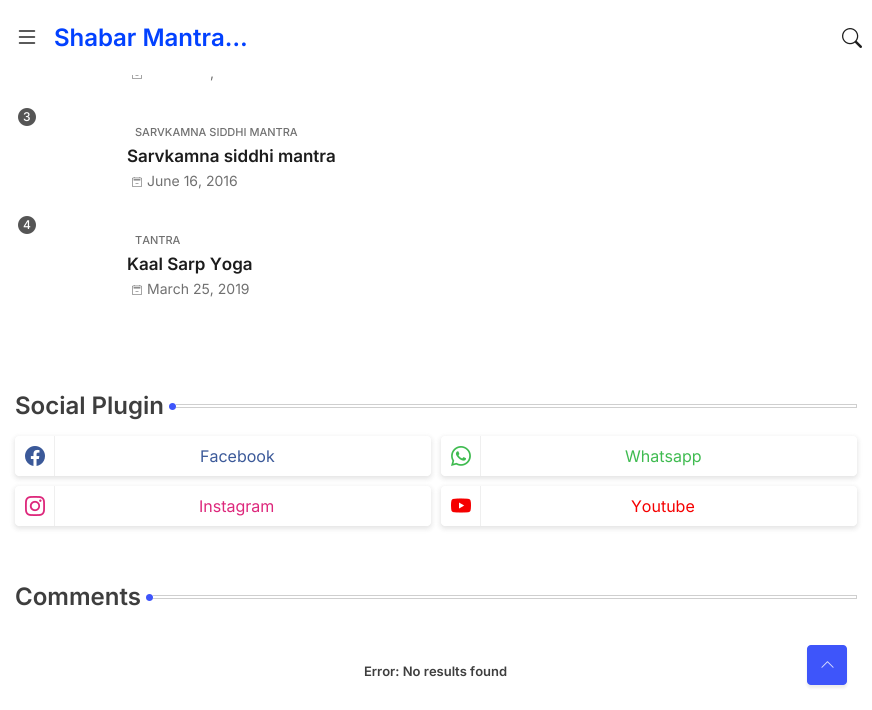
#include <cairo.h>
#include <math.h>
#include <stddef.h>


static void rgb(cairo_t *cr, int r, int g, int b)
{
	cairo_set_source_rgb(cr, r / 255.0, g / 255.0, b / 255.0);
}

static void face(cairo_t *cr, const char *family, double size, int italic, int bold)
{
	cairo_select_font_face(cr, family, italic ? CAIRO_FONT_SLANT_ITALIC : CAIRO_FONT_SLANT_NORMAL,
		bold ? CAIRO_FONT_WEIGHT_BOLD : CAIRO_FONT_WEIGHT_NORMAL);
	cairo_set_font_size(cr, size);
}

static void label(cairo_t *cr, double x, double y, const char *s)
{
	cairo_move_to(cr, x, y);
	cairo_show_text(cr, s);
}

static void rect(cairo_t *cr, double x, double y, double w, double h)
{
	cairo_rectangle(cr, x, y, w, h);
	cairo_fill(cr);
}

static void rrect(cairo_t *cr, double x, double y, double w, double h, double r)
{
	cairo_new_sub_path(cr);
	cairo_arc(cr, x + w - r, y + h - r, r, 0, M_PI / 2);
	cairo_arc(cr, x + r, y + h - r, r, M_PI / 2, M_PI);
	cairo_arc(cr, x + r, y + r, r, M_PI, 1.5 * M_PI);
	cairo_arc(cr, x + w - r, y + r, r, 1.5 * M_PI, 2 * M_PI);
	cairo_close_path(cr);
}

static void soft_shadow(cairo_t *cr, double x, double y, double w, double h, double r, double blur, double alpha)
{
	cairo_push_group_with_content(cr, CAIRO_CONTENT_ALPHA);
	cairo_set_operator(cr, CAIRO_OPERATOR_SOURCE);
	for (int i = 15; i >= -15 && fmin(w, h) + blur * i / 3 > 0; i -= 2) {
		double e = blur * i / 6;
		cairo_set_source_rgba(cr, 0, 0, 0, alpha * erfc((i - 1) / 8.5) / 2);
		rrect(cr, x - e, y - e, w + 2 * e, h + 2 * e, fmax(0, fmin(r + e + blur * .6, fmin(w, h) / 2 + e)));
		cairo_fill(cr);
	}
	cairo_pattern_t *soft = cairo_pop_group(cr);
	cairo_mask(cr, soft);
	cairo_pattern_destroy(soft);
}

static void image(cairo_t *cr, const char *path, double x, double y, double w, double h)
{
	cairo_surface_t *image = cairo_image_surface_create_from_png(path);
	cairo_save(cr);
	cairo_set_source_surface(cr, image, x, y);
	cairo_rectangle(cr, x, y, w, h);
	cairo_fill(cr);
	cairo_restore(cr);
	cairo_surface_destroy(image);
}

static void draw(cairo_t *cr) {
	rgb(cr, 255, 255, 255);
	cairo_paint(cr);
	image(cr, "image0.png", 18, 30, 18, 14);
	face(cr, "Inter SemiBold", 24, 0, 0);
	rgb(cr, 2, 65, 255);
	label(cr, 54, 46, "Shabar Mantra…");
	image(cr, "image1.png", 842, 28, 20, 20);
	image(cr, "image2.png", 132, 75, 10, 4);
	face(cr, "Inter", 14, 0, 0);
	rgb(cr, 112, 112, 112);
	label(cr, 210, 78, ",");
	rgb(cr, 85, 85, 85);
	cairo_new_path(cr);
	cairo_arc(cr, 27, 117, 10.5, 0, 2 * M_PI);
	cairo_fill_preserve(cr);
	rgb(cr, 255, 255, 255);
	cairo_set_line_width(cr, 3);
	cairo_stroke(cr);
	face(cr, "Inter Medium", 12, 0, 0);
	label(cr, 23, 121, "3");
	face(cr, "Inter Medium", 11, 0, 0);
	rgb(cr, 112, 112, 112);
	label(cr, 135, 136, "SARVKAMNA SIDDHI MANTRA");
	face(cr, "Inter SemiBold", 17, 0, 0);
	rgb(cr, 28, 28, 28);
	label(cr, 127, 162, "Sarvkamna siddhi mantra");
	image(cr, "image3.png", 132, 177, 10, 10);
	face(cr, "Inter", 14, 0, 0);
	rgb(cr, 112, 112, 112);
	label(cr, 147, 186, "June 16, 2016");
	rgb(cr, 85, 85, 85);
	cairo_new_path(cr);
	cairo_arc(cr, 27, 225, 10.5, 0, 2 * M_PI);
	cairo_fill_preserve(cr);
	rgb(cr, 255, 255, 255);
	cairo_stroke(cr);
	face(cr, "Inter Medium", 12, 0, 0);
	label(cr, 23, 229, "4");
	face(cr, "Inter Medium", 11, 0, 0);
	rgb(cr, 112, 112, 112);
	label(cr, 135, 244, "TANTRA");
	face(cr, "Inter SemiBold", 17, 0, 0);
	rgb(cr, 28, 28, 28);
	label(cr, 127, 270, "Kaal Sarp Yoga");
	image(cr, "image3.png", 132, 285, 10, 10);
	face(cr, "Inter", 14, 0, 0);
	rgb(cr, 112, 112, 112);
	label(cr, 147, 294, "March 25, 2019");
	cairo_rectangle(cr, 15.5, 404.5, 841, 3);
	rgb(cr, 207, 207, 207);
	cairo_set_line_width(cr, 1);
	cairo_stroke(cr);
	rgb(cr, 255, 255, 255);
	rect(cr, 15, 404, 161, 4);
	face(cr, "Inter SemiBold", 24, 0, 0);
	rgb(cr, 62, 62, 62);
	label(cr, 15, 414, "Social Plugin");
	rgb(cr, 62, 85, 250);
	cairo_new_path(cr);
	cairo_arc(cr, 172.5, 406.5, 3.5, 0, 2 * M_PI);
	cairo_fill(cr);
	cairo_save(cr);
	cairo_set_fill_rule(cr, CAIRO_FILL_RULE_EVEN_ODD);
	cairo_new_path(cr);
	cairo_move_to(cr, 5, 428);
	cairo_line_to(cr, 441, 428);
	cairo_line_to(cr, 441, 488);
	cairo_line_to(cr, 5, 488);
	cairo_close_path(cr);
	cairo_move_to(cr, 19, 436);
	cairo_line_to(cr, 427, 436);
	cairo_curve_to(cr, 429, 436, 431, 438, 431, 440);
	cairo_line_to(cr, 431, 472);
	cairo_curve_to(cr, 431, 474, 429, 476, 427, 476);
	cairo_line_to(cr, 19, 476);
	cairo_curve_to(cr, 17, 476, 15, 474, 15, 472);
	cairo_line_to(cr, 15, 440);
	cairo_curve_to(cr, 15, 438, 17, 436, 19, 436);
	cairo_close_path(cr);
	cairo_clip(cr);
	rgb(cr, 0, 0, 0);
	soft_shadow(cr, 14, 437, 418, 42, 5, 2.5, 0.1);
	cairo_restore(cr);
	rgb(cr, 239, 239, 239);
	rect(cr, 54, 436, 1, 40);
	image(cr, "image4.png", 25, 446, 20, 20);
	face(cr, "Inter", 16, 0, 0);
	rgb(cr, 59, 89, 153);
	label(cr, 200, 462, "Facebook");
	cairo_save(cr);
	cairo_set_fill_rule(cr, CAIRO_FILL_RULE_EVEN_ODD);
	cairo_new_path(cr);
	cairo_move_to(cr, 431, 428);
	cairo_line_to(cr, 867, 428);
	cairo_line_to(cr, 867, 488);
	cairo_line_to(cr, 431, 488);
	cairo_close_path(cr);
	cairo_move_to(cr, 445, 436);
	cairo_line_to(cr, 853, 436);
	cairo_curve_to(cr, 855, 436, 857, 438, 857, 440);
	cairo_line_to(cr, 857, 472);
	cairo_curve_to(cr, 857, 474, 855, 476, 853, 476);
	cairo_line_to(cr, 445, 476);
	cairo_curve_to(cr, 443, 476, 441, 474, 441, 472);
	cairo_line_to(cr, 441, 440);
	cairo_curve_to(cr, 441, 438, 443, 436, 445, 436);
	cairo_close_path(cr);
	cairo_clip(cr);
	rgb(cr, 0, 0, 0);
	soft_shadow(cr, 440, 437, 418, 42, 5, 2.5, 0.1);
	cairo_restore(cr);
	rgb(cr, 239, 239, 239);
	rect(cr, 480, 436, 1, 40);
	image(cr, "image5.png", 451, 446, 20, 20);
	rgb(cr, 63, 187, 80);
	label(cr, 625, 462, "Whatsapp");
	cairo_save(cr);
	cairo_set_fill_rule(cr, CAIRO_FILL_RULE_EVEN_ODD);
	cairo_new_path(cr);
	cairo_move_to(cr, 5, 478);
	cairo_line_to(cr, 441, 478);
	cairo_line_to(cr, 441, 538);
	cairo_line_to(cr, 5, 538);
	cairo_close_path(cr);
	cairo_move_to(cr, 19, 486);
	cairo_line_to(cr, 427, 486);
	cairo_curve_to(cr, 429, 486, 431, 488, 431, 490);
	cairo_line_to(cr, 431, 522);
	cairo_curve_to(cr, 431, 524, 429, 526, 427, 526);
	cairo_line_to(cr, 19, 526);
	cairo_curve_to(cr, 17, 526, 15, 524, 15, 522);
	cairo_line_to(cr, 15, 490);
	cairo_curve_to(cr, 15, 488, 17, 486, 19, 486);
	cairo_close_path(cr);
	cairo_clip(cr);
	rgb(cr, 0, 0, 0);
	soft_shadow(cr, 14, 487, 418, 42, 5, 2.5, 0.1);
	cairo_restore(cr);
	rgb(cr, 239, 239, 239);
	rect(cr, 54, 486, 1, 40);
	image(cr, "image6.png", 25, 496, 20, 20);
	rgb(cr, 221, 39, 123);
	label(cr, 199, 512, "Instagram");
	cairo_save(cr);
	cairo_set_fill_rule(cr, CAIRO_FILL_RULE_EVEN_ODD);
	cairo_new_path(cr);
	cairo_move_to(cr, 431, 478);
	cairo_line_to(cr, 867, 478);
	cairo_line_to(cr, 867, 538);
	cairo_line_to(cr, 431, 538);
	cairo_close_path(cr);
	cairo_move_to(cr, 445, 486);
	cairo_line_to(cr, 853, 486);
	cairo_curve_to(cr, 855, 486, 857, 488, 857, 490);
	cairo_line_to(cr, 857, 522);
	cairo_curve_to(cr, 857, 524, 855, 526, 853, 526);
	cairo_line_to(cr, 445, 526);
	cairo_curve_to(cr, 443, 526, 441, 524, 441, 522);
	cairo_line_to(cr, 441, 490);
	cairo_curve_to(cr, 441, 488, 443, 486, 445, 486);
	cairo_close_path(cr);
	cairo_clip(cr);
	rgb(cr, 0, 0, 0);
	soft_shadow(cr, 440, 487, 418, 42, 5, 2.5, 0.1);
	cairo_restore(cr);
	rgb(cr, 239, 239, 239);
	rect(cr, 480, 486, 1, 40);
	image(cr, "image7.png", 451, 498, 20, 15);
	rgb(cr, 245, 0, 0);
	label(cr, 631, 512, "Youtube");
	cairo_rectangle(cr, 15.5, 595.5, 841, 3);
	rgb(cr, 207, 207, 207);
	cairo_stroke(cr);
	rgb(cr, 255, 255, 255);
	rect(cr, 15, 595, 138, 4);
	face(cr, "Inter SemiBold", 24, 0, 0);
	rgb(cr, 62, 62, 62);
	label(cr, 15, 605, "Comments");
	rgb(cr, 62, 85, 250);
	cairo_new_path(cr);
	cairo_arc(cr, 149.5, 597.5, 3.5, 0, 2 * M_PI);
	cairo_fill(cr);
	face(cr, "Inter SemiBold", 13, 0, 0);
	rgb(cr, 62, 62, 62);
	label(cr, 364, 676, "Error: No results found");
	rgb(cr, 0, 0, 0);
	soft_shadow(cr, 807, 648, 40, 40, 4, 1.5, 0.08);
	rgb(cr, 62, 85, 250);
	rrect(cr, 807, 645, 40, 40, 4);
	cairo_fill(cr);
	image(cr, "image8.png", 821, 661, 13, 7);
}

int main(void) {
	cairo_surface_t *surface = cairo_image_surface_create(CAIRO_FORMAT_RGB24, 872, 710);
	cairo_t *cr = cairo_create(surface);
	cairo_font_options_t *options = cairo_font_options_create();
	cairo_font_options_set_hint_metrics(options, CAIRO_HINT_METRICS_OFF);
	cairo_font_options_set_hint_style(options, CAIRO_HINT_STYLE_NONE);
	cairo_set_font_options(cr, options);
	cairo_set_miter_limit(cr, 4);
	draw(cr);
	cairo_surface_write_to_png(surface, "render.png");
	cairo_font_options_destroy(options);
	cairo_destroy(cr);
	cairo_surface_destroy(surface);
	return 0;
}
